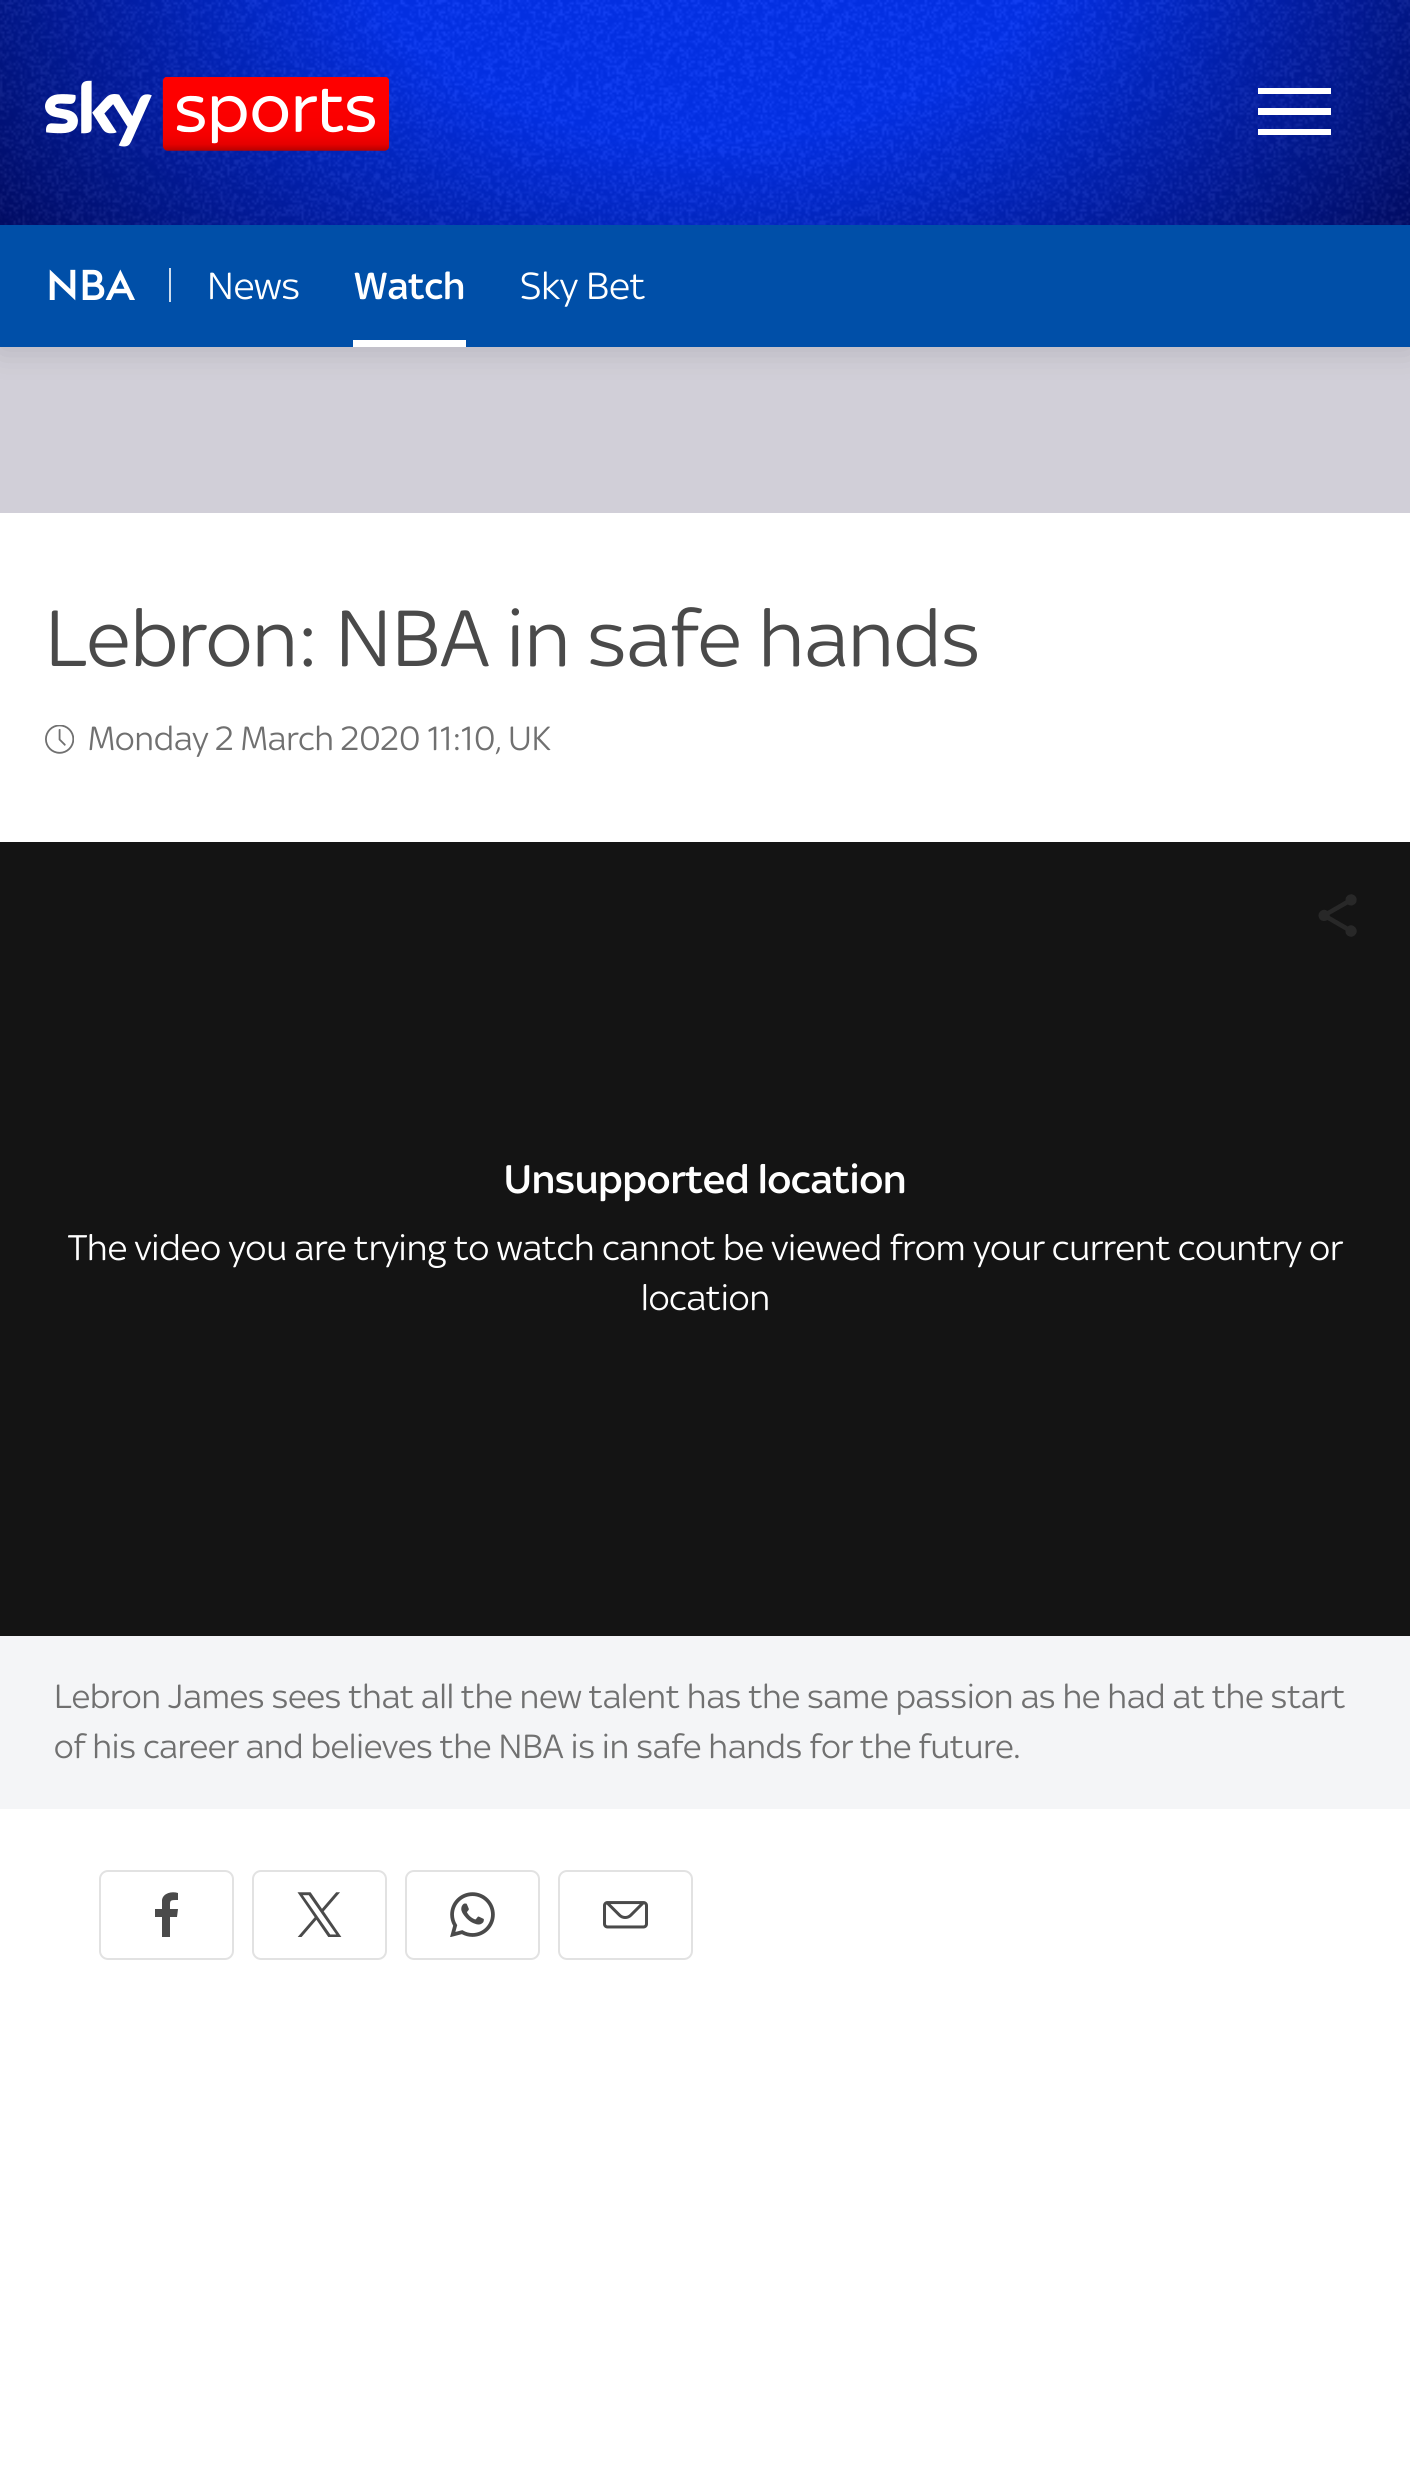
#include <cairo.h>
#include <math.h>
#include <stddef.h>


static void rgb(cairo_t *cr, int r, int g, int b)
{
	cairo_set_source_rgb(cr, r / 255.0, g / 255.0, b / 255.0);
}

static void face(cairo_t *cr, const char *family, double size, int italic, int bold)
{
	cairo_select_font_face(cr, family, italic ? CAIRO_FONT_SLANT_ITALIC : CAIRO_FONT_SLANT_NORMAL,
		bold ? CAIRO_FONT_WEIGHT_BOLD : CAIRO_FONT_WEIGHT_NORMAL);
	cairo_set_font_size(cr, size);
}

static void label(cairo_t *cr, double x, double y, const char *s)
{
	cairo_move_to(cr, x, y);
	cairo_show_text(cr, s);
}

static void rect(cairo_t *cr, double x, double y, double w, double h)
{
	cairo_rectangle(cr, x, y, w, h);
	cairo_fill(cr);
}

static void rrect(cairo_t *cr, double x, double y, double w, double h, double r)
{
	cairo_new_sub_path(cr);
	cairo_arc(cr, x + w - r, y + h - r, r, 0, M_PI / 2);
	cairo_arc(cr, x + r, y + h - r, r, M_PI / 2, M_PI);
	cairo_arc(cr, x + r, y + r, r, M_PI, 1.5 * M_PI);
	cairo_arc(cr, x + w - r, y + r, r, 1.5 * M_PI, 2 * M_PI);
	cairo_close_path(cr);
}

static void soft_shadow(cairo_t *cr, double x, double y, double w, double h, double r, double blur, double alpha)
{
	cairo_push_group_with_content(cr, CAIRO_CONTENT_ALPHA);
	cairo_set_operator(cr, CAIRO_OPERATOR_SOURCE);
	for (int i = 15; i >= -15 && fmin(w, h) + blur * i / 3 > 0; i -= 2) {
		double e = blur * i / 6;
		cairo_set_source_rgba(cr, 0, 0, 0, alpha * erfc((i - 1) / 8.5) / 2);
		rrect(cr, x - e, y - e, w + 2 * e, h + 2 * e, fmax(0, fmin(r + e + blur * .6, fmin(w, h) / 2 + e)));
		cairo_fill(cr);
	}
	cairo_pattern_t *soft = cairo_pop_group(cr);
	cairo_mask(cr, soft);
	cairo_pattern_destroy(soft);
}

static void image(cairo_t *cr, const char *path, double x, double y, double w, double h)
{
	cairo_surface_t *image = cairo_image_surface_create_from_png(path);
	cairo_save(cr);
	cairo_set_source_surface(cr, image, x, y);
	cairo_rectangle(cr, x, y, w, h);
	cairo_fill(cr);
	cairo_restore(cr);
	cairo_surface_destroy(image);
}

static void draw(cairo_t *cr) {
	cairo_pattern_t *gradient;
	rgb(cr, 255, 255, 255);
	cairo_paint(cr);
	rgb(cr, 209, 207, 216);
	rect(cr, 0, 347, 1410, 166);
	rgb(cr, 0, 0, 0);
	soft_shadow(cr, 0, 2, 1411, 347, 0, 17, 0.14);
	gradient = cairo_pattern_create_radial(0, 0, 0, 0, 0, 1);
	cairo_pattern_set_matrix(gradient, &(cairo_matrix_t){1.0 / 998, 0, 0, 1.0 / 636, -1.0 * 705 / 998, -1.0 * -90 / 636});
	cairo_pattern_add_color_stop_rgba(gradient, 0.36, 0.012, 0.196, 0.937, 1);
	cairo_pattern_add_color_stop_rgba(gradient, 1, 0, 0.008, 0.267, 1);
	cairo_set_source(cr, gradient);
	cairo_pattern_destroy(gradient);
	rect(cr, 0, 0, 1410, 225);
	image(cr, "image0.png", 0, 0, 1410, 225);
	image(cr, "image1.png", 45, 77, 344, 74);
	rgb(cr, 255, 255, 255);
	rect(cr, 1258, 88, 73, 6);
	rect(cr, 1258, 108, 73, 7);
	rect(cr, 1258, 129, 73, 6);
	rgb(cr, 0, 79, 168);
	rect(cr, 0, 225, 1410, 122);
	face(cr, "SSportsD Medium", 42.5, 0, 0);
	rgb(cr, 255, 255, 255);
	label(cr, 46, 300, "NBA");
	rgb(cr, 204, 220, 238);
	rect(cr, 169, 268, 2, 34);
	face(cr, "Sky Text", 40.5, 0, 0);
	rgb(cr, 255, 255, 255);
	label(cr, 207, 299, "News");
	rect(cr, 353, 340, 113, 7);
	face(cr, "Sky Text Medium", 40.5, 0, 0);
	label(cr, 354, 299, "Watch");
	face(cr, "Sky Text", 40.5, 0, 0);
	label(cr, 520, 299, "Sky Bet");
	face(cr, "Sky Text", 85.25, 0, 0);
	rgb(cr, 74, 74, 74);
	label(cr, 45, 666, "Lebron: NBA in safe hands");
	image(cr, "image2.png", 45, 725, 29, 29);
	face(cr, "Sky Text", 36, 0, 0);
	rgb(cr, 112, 112, 112);
	label(cr, 88, 750, "Monday 2 March 2020 11:10, UK");
	rgb(cr, 20, 20, 20);
	rect(cr, 0, 842, 1410, 794);
	image(cr, "image3.png", 1318, 894, 39, 43);
	face(cr, "Sky Text Medium", 42.75, 0, 0);
	rgb(cr, 255, 255, 255);
	label(cr, 504, 1193, "Unsupported location");
	face(cr, "Sky Text", 38.25, 0, 0);
	label(cr, 68, 1260, "The video you are trying to watch cannot be viewed from your current country or");
	label(cr, 641, 1310, "location");
	rgb(cr, 244, 245, 247);
	rect(cr, 0, 1636, 1410, 173);
	face(cr, "Sky Text", 36, 0, 0);
	rgb(cr, 112, 112, 112);
	label(cr, 54, 1708, "Lebron James sees that all the new talent has the same passion as he had at the start");
	label(cr, 54, 1758, "of his career and believes the NBA is in safe hands for the future.");
	rrect(cr, 100, 1871, 133, 88, 8);
	rgb(cr, 226, 226, 226);
	cairo_stroke(cr);
	rgb(cr, 74, 74, 74);
	cairo_new_path(cr);
	cairo_move_to(cr, 177, 1917);
	cairo_line_to(cr, 178, 1909);
	cairo_line_to(cr, 170, 1909);
	cairo_curve_to(cr, 170, 1900, 169, 1900, 178, 1900);
	cairo_line_to(cr, 178, 1893);
	cairo_curve_to(cr, 172, 1891, 163, 1893, 162, 1900);
	cairo_line_to(cr, 162, 1909);
	cairo_line_to(cr, 155, 1909);
	cairo_line_to(cr, 155, 1917);
	cairo_line_to(cr, 162, 1917);
	cairo_line_to(cr, 162, 1937);
	cairo_line_to(cr, 170, 1937);
	cairo_line_to(cr, 170, 1917);
	cairo_close_path(cr);
	cairo_fill(cr);
	rrect(cr, 253, 1871, 133, 88, 8);
	rgb(cr, 226, 226, 226);
	cairo_stroke(cr);
	image(cr, "image4.png", 297, 1892, 45, 45);
	rrect(cr, 406, 1871, 133, 88, 8);
	cairo_stroke(cr);
	image(cr, "image5.png", 450, 1892, 45, 45);
	rrect(cr, 559, 1871, 133, 88, 8);
	cairo_stroke(cr);
	image(cr, "image6.png", 603, 1901, 45, 28);
}

int main(void) {
	cairo_surface_t *surface = cairo_image_surface_create(CAIRO_FORMAT_RGB24, 1410, 2475);
	cairo_t *cr = cairo_create(surface);
	cairo_font_options_t *options = cairo_font_options_create();
	cairo_font_options_set_hint_metrics(options, CAIRO_HINT_METRICS_OFF);
	cairo_font_options_set_hint_style(options, CAIRO_HINT_STYLE_NONE);
	cairo_set_font_options(cr, options);
	cairo_set_miter_limit(cr, 4);
	draw(cr);
	cairo_surface_write_to_png(surface, "render.png");
	cairo_font_options_destroy(options);
	cairo_destroy(cr);
	cairo_surface_destroy(surface);
	return 0;
}
